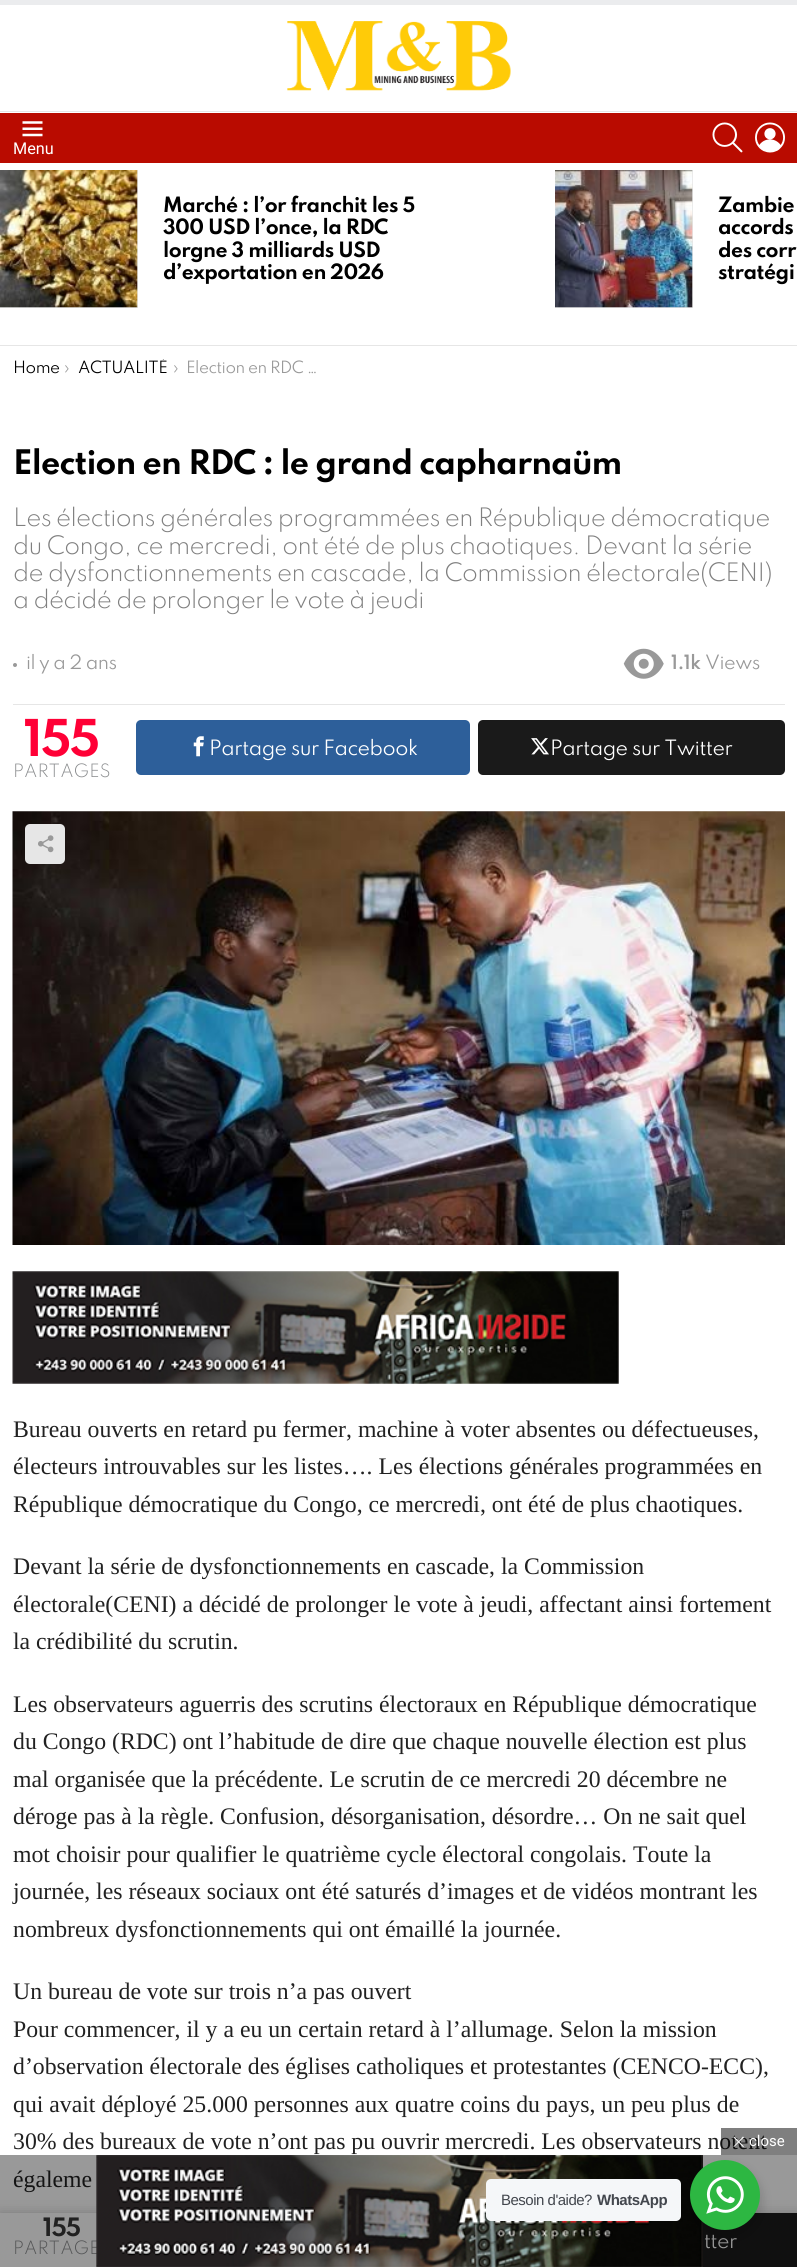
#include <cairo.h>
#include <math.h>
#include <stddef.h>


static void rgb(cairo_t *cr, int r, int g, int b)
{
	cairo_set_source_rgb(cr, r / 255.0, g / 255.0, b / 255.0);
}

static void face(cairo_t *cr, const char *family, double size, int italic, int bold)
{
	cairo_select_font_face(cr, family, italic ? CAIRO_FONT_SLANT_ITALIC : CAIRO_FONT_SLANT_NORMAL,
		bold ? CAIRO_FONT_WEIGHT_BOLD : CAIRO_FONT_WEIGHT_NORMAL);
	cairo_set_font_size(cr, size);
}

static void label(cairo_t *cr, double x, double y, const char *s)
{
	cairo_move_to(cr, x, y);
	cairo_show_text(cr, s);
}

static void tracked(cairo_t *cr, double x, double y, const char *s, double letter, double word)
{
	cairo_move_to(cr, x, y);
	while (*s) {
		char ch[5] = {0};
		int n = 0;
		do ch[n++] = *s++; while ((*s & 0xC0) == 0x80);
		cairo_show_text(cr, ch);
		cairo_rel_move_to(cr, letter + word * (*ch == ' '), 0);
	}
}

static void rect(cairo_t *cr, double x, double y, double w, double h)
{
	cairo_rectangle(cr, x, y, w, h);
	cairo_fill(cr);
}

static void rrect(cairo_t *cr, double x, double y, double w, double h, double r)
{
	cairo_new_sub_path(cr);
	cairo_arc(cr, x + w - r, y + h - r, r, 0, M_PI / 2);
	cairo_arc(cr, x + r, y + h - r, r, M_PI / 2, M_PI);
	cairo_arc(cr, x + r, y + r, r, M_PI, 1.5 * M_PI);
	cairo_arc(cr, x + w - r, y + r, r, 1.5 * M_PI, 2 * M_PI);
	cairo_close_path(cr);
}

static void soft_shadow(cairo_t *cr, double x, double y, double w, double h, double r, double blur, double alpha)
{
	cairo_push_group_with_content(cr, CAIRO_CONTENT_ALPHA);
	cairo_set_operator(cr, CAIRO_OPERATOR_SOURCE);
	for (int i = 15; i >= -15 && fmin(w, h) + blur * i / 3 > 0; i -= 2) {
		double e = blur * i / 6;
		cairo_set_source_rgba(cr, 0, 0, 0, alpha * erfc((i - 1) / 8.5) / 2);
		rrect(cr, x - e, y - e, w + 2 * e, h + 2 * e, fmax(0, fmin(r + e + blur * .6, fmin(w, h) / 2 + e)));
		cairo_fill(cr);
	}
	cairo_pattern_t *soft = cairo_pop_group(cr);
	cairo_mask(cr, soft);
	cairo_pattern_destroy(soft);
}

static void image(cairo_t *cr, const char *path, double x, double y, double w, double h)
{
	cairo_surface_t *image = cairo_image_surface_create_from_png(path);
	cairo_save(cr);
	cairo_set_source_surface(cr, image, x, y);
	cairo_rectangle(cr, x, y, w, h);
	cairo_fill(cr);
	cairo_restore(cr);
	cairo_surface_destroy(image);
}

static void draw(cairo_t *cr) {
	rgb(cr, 255, 255, 255);
	cairo_paint(cr);
	rgb(cr, 153, 153, 153);
	rect(cr, 0, 2155, 797, 58);
	rgb(cr, 235, 236, 238);
	rect(cr, 0, 0, 797, 5);
	image(cr, "image0.png", 287, 21, 224, 70);
	rgb(cr, 230, 230, 230);
	rect(cr, 0, 111, 797, 1);
	rgb(cr, 185, 11, 0);
	rect(cr, 0, 113, 797, 50);
	image(cr, "image1.png", 22, 121, 21, 16);
	face(cr, "Roboto", 16.25, 0, 0);
	rgb(cr, 255, 255, 255);
	label(cr, 13, 154, "Menu");
	image(cr, "image2.png", 712, 122, 31, 31);
	image(cr, "image3.png", 755, 122, 30, 31);
	rgb(cr, 230, 230, 230);
	rect(cr, 0, 345, 797, 1);
	rect(cr, 0, 170, 138, 138);
	image(cr, "image4.png", 0, 170, 138, 138);
	face(cr, "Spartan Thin", 18.75, 0, 1);
	rgb(cr, 0, 0, 0);
	tracked(cr, 163, 212, "Marché : l’or franchit les 5", -0.55, 0);
	tracked(cr, 163, 234, "300 USD l’once, la RDC", -0.55, 0);
	tracked(cr, 163, 257, "lorgne 3 milliards USD", -0.55, 0);
	tracked(cr, 163, 279, "d’exportation en 2026", -0.55, 0);
	rgb(cr, 230, 230, 230);
	rect(cr, 555, 170, 138, 138);
	image(cr, "image5.png", 555, 170, 138, 138);
	rgb(cr, 0, 0, 0);
	tracked(cr, 718, 212, "Zambie", -0.55, 0);
	tracked(cr, 718, 234, "accords", -0.55, 0);
	tracked(cr, 718, 257, "des corr", -0.55, 0);
	tracked(cr, 718, 279, "stratégi", -0.55, 0);
	face(cr, "Spartan Thin", 15, 0, 0);
	tracked(cr, 13, 373, "Home", -0.5, 0);
	rgb(cr, 153, 153, 153);
	tracked(cr, 64, 373, "›", -0.5, 0);
	cairo_save(cr);
	cairo_rectangle(cr, 64, 359, 104, 20);
	cairo_clip(cr);
	rgb(cr, 0, 0, 0);
	tracked(cr, 78, 373, "ACTUALITÉ", -0.5, 0);
	cairo_restore(cr);
	tracked(cr, 173, 373, "›", -0.5, 0);
	tracked(cr, 186, 373, "Election en RDC …", -0.5, 0);
	face(cr, "Spartan Thin", 30, 0, 1);
	rgb(cr, 0, 0, 0);
	tracked(cr, 13, 474, "Election en RDC : le grand capharnaüm", -0.9, 0);
	face(cr, "Spartan Thin Light", 22.5, 0, 0);
	rgb(cr, 128, 128, 128);
	tracked(cr, 13, 526, "Les élections générales programmées en République démocratique", -0.68, 0);
	tracked(cr, 13, 554, "du Congo, ce mercredi, ont été de plus chaotiques. Devant la série", -0.68, 0);
	tracked(cr, 13, 581, "de dysfonctionnements en cascade, la Commission électorale(CENI)", -0.68, 0);
	tracked(cr, 13, 608, "a décidé de prolonger le vote à jeudi", -0.68, 0);
	rgb(cr, 153, 153, 153);
	cairo_new_path(cr);
	cairo_arc(cr, 15, 665, 2, 0, 2 * M_PI);
	cairo_fill(cr);
	face(cr, "Spartan Thin", 17.5, 0, 0);
	tracked(cr, 26, 669, "il y a 2 ans", -0.5, 0);
	image(cr, "image6.png", 623, 648, 41, 31);
	face(cr, "Spartan Thin SemiBold", 17.5, 0, 0);
	tracked(cr, 671, 669, "1.1k", -0.5, 0);
	face(cr, "Spartan Thin", 17.5, 0, 0);
	tracked(cr, 705, 669, "Views", -0.5, 0);
	rgb(cr, 230, 230, 230);
	rect(cr, 13, 704, 772, 1);
	face(cr, "Spartan Thin", 45, 0, 1);
	rgb(cr, 255, 0, 54);
	tracked(cr, 24, 756, "155", -2, 0);
	face(cr, "Spartan Thin Light", 16.25, 0, 0);
	rgb(cr, 138, 140, 142);
	label(cr, 13, 777, "PARTAGES");
	rgb(cr, 45, 95, 154);
	rrect(cr, 136, 720, 334, 55, 5);
	cairo_fill(cr);
	image(cr, "image7.png", 193, 736, 11, 21);
	face(cr, "Spartan Thin", 18.75, 0, 0);
	rgb(cr, 255, 255, 255);
	tracked(cr, 209, 755, "Partage sur Facebook", -0.5, 0);
	rgb(cr, 26, 26, 26);
	rrect(cr, 478, 720, 307, 55, 5);
	cairo_fill(cr);
	image(cr, "image8.png", 531, 738, 18, 17);
	rgb(cr, 255, 255, 255);
	tracked(cr, 550, 755, "Partage sur Twitter", -0.5, 0);
	image(cr, "image9.png", 12, 811, 773, 434);
	rgb(cr, 230, 230, 230);
	rrect(cr, 25, 824, 40, 40, 5);
	cairo_fill(cr);
	image(cr, "image10.png", 38, 835, 16, 18);
	image(cr, "image11.png", 12, 1271, 607, 113);
	face(cr, "Liberation Serif", 23.75, 0, 0);
	rgb(cr, 33, 33, 33);
	label(cr, 13, 1437, "Bureau ouverts en retard pu fermer, machine à voter absentes ou défectueuses,");
	label(cr, 13, 1474, "électeurs introuvables sur les listes…. Les élections générales programmées en");
	label(cr, 13, 1512, "République démocratique du Congo, ce mercredi, ont été de plus chaotiques.");
	label(cr, 13, 1574, "Devant la série de dysfonctionnements en cascade, la Commission");
	label(cr, 13, 1612, "électorale(CENI) a décidé de prolonger le vote à jeudi, affectant ainsi fortement");
	label(cr, 13, 1649, "la crédibilité du scrutin.");
	label(cr, 13, 1712, "Les observateurs aguerris des scrutins électoraux en République démocratique");
	label(cr, 13, 1749, "du Congo (RDC) ont l’habitude de dire que chaque nouvelle élection est plus");
	label(cr, 13, 1787, "mal organisée que la précédente. Le scrutin de ce mercredi 20 décembre ne");
	label(cr, 13, 1824, "déroge pas à la règle. Confusion, désorganisation, désordre… On ne sait quel");
	label(cr, 13, 1862, "mot choisir pour qualifier le quatrième cycle électoral congolais. Toute la");
	label(cr, 13, 1899, "journée, les réseaux sociaux ont été saturés d’images et de vidéos montrant les");
	label(cr, 13, 1937, "nombreux dysfonctionnements qui ont émaillé la journée.");
	label(cr, 13, 1999, "Un bureau de vote sur trois n’a pas ouvert");
	label(cr, 13, 2037, "Pour commencer, il y a eu un certain retard à l’allumage. Selon la mission");
	label(cr, 13, 2074, "d’observation électorale des églises catholiques et protestantes (CENCO-ECC),");
	label(cr, 13, 2112, "qui avait déployé 25.000 personnes aux quatre coins du pays, un peu plus de");
	label(cr, 13, 2149, "30% des bureaux de vote n’ont pas pu ouvrir mercredi. Les observateurs notent");
	rgb(cr, 20, 20, 20);
	label(cr, 13, 2187, "égaleme");
	rgb(cr, 0, 0, 0);
	soft_shadow(cr, 0, 2213, 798, 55, 0, 6, 0.2);
	rgb(cr, 153, 153, 153);
	rect(cr, 0, 2213, 97, 54);
	face(cr, "Spartan Thin", 22.5, 0, 1);
	rgb(cr, 33, 33, 33);
	tracked(cr, 43, 2236, "155", -1, 0);
	face(cr, "Spartan Thin Light", 16.25, 0, 0);
	rgb(cr, 83, 84, 85);
	label(cr, 13, 2254, "PARTAGE");
	rgb(cr, 16, 16, 16);
	rect(cr, 703, 2213, 94, 54);
	face(cr, "Spartan Thin", 18.75, 0, 0);
	rgb(cr, 153, 153, 153);
	tracked(cr, 704, 2248, "tter", -0.5, 0);
	cairo_set_source_rgba(cr, 0, 0, 0, 0.5);
	rect(cr, 721, 2128, 76, 27);
	rgb(cr, 255, 255, 255);
	cairo_new_path(cr);
	cairo_move_to(cr, 734, 2136.5);
	cairo_line_to(cr, 744, 2146.5);
	cairo_line_to(cr, 743, 2147);
	cairo_line_to(cr, 733.5, 2137.5);
	cairo_close_path(cr);
	cairo_fill(cr);
	face(cr, "Roboto", 15, 0, 0);
	label(cr, 749, 2146, "close");
	cairo_new_path(cr);
	cairo_move_to(cr, 743, 2136.5);
	cairo_line_to(cr, 744, 2137.5);
	cairo_line_to(cr, 734, 2147);
	cairo_line_to(cr, 733.5, 2146.5);
	cairo_close_path(cr);
	cairo_fill(cr);
	image(cr, "image12.png", 96, 2155, 607, 112);
	rgb(cr, 0, 0, 0);
	soft_shadow(cr, 688, 2165, 75, 75, 37.5, 5, 0.14);
	rgb(cr, 245, 247, 249);
	rrect(cr, 486, 2179, 195, 42, 5);
	cairo_fill(cr);
	face(cr, "Liberation Sans", 15, 0, 0);
	rgb(cr, 67, 71, 78);
	tracked(cr, 501, 2205, "Besoin d'aide?", -0.5, 0);
	face(cr, "Liberation Sans", 15, 0, 1);
	tracked(cr, 597, 2205, "WhatsApp", -0.5, 0);
	rgb(cr, 45, 183, 66);
	cairo_new_path(cr);
	cairo_arc(cr, 725, 2195, 35, 0, 2 * M_PI);
	cairo_fill(cr);
	image(cr, "image13.png", 706, 2176, 38, 38);
}

int main(void) {
	cairo_surface_t *surface = cairo_image_surface_create(CAIRO_FORMAT_RGB24, 797, 2267);
	cairo_t *cr = cairo_create(surface);
	cairo_font_options_t *options = cairo_font_options_create();
	cairo_font_options_set_hint_metrics(options, CAIRO_HINT_METRICS_OFF);
	cairo_font_options_set_hint_style(options, CAIRO_HINT_STYLE_NONE);
	cairo_set_font_options(cr, options);
	cairo_set_miter_limit(cr, 4);
	draw(cr);
	cairo_surface_write_to_png(surface, "render.png");
	cairo_font_options_destroy(options);
	cairo_destroy(cr);
	cairo_surface_destroy(surface);
	return 0;
}
